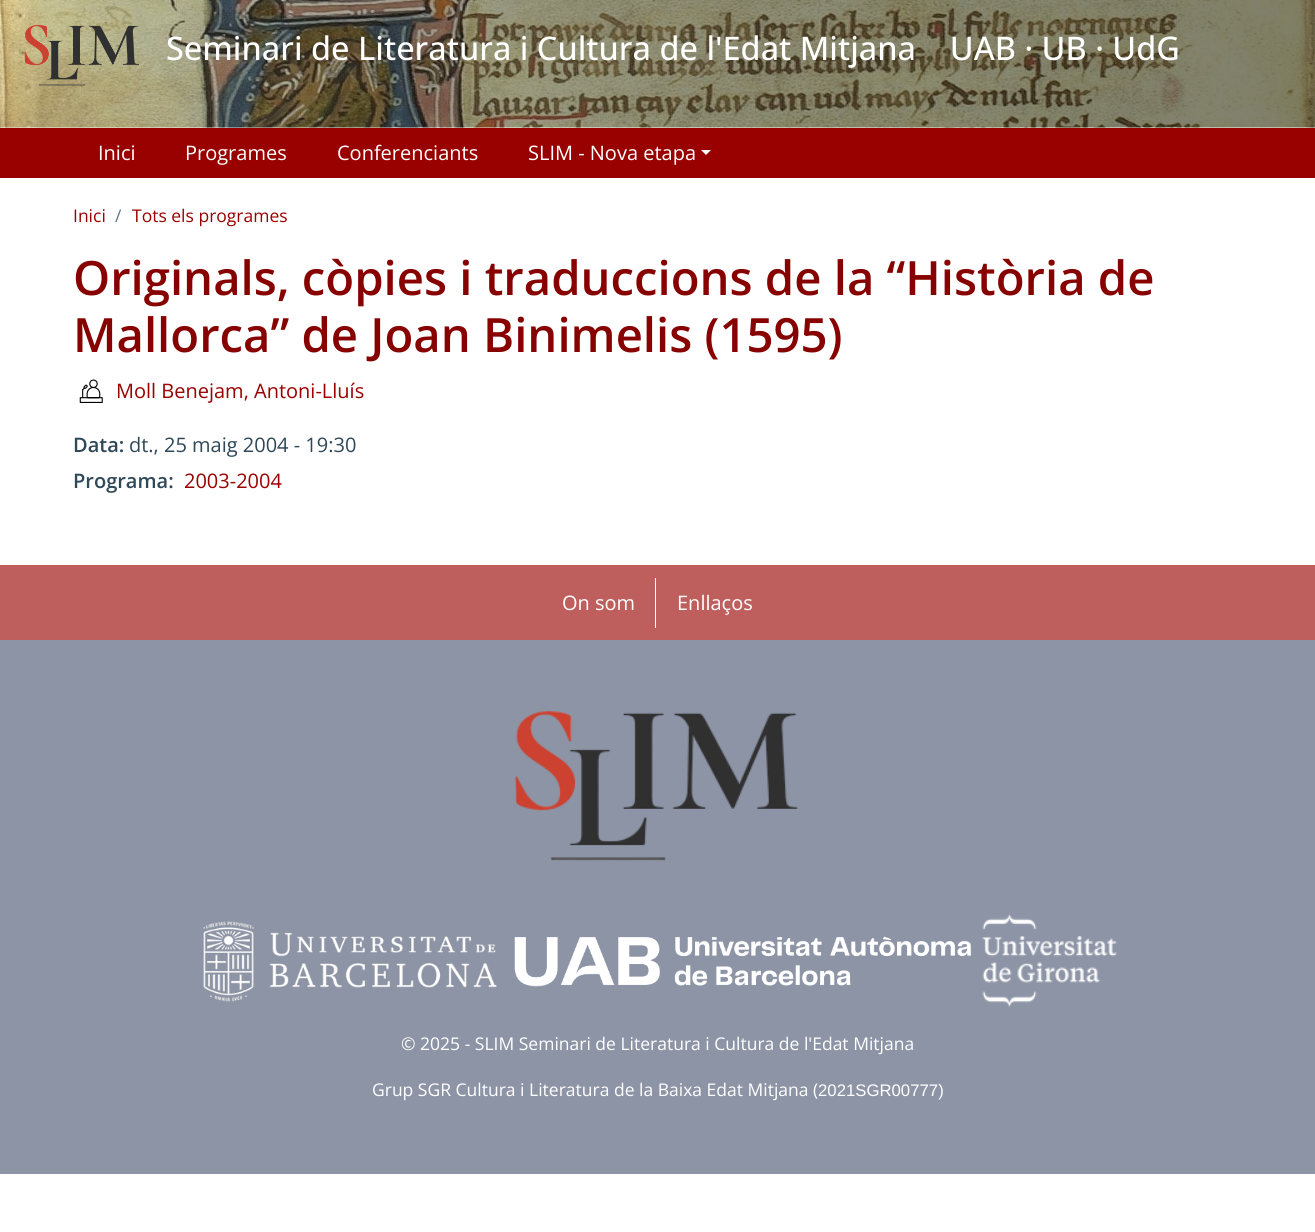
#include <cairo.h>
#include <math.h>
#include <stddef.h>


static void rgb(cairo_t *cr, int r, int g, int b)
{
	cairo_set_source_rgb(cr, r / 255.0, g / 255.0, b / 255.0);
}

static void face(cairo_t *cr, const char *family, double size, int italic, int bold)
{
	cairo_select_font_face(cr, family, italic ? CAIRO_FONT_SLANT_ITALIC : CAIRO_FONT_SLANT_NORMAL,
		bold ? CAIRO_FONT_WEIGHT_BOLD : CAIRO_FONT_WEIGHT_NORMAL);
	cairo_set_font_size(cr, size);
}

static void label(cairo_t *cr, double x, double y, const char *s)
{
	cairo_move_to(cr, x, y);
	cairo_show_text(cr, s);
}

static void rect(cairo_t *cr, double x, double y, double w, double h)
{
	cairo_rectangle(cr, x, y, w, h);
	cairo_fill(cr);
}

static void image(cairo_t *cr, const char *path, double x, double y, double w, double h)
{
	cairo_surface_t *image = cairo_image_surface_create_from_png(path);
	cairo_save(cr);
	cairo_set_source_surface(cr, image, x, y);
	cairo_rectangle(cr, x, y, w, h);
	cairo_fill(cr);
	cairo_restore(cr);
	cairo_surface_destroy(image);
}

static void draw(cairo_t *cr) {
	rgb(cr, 255, 255, 255);
	cairo_paint(cr);
	image(cr, "image0.png", 0, 0, 1315, 128);
	image(cr, "image1.png", 24, 25, 115, 61);
	face(cr, "Open Sans Medium", 32.5, 0, 0);
	rgb(cr, 255, 255, 255);
	label(cr, 166, 60, "Seminari de Literatura i Cultura de l'Edat Mitjana    UAB · UB · UdG");
	rgb(cr, 152, 1, 0);
	rect(cr, 0, 128, 1315, 50);
	face(cr, "Open Sans", 20, 0, 0);
	rgb(cr, 255, 255, 255);
	label(cr, 98, 160, "Inici");
	label(cr, 185, 160, "Programes");
	label(cr, 337, 160, "Conferenciants");
	label(cr, 528, 160, "SLIM - Nova etapa");
	cairo_new_path(cr);
	cairo_move_to(cr, 701, 150);
	cairo_line_to(cr, 711, 150);
	cairo_line_to(cr, 706, 155);
	cairo_close_path(cr);
	cairo_fill(cr);
	face(cr, "Open Sans", 17.5, 0, 0);
	rgb(cr, 152, 1, 0);
	label(cr, 73, 222, "Inici");
	rgb(cr, 99, 118, 130);
	label(cr, 115, 222, "/");
	rgb(cr, 152, 1, 0);
	label(cr, 132, 222, "Tots els programes");
	face(cr, "Open Sans SemiBold", 47.25, 0, 0);
	rgb(cr, 134, 1, 0);
	label(cr, 73, 295, "Originals, còpies i traduccions de la “Història de");
	label(cr, 73, 352, "Mallorca” de Joan Binimelis (1595)");
	image(cr, "image2.png", 79, 379, 24, 24);
	face(cr, "Open Sans", 20, 0, 0);
	rgb(cr, 152, 1, 0);
	label(cr, 116, 398, "Moll Benejam, Antoni-Lluís");
	face(cr, "Open Sans SemiBold", 20, 0, 0);
	rgb(cr, 47, 72, 88);
	label(cr, 73, 452, "Data:");
	face(cr, "Open Sans", 20, 0, 0);
	label(cr, 129, 452, "dt., 25 maig 2004 - 19:30");
	face(cr, "Open Sans SemiBold", 20, 0, 0);
	label(cr, 73, 488, "Programa:");
	face(cr, "Open Sans", 20, 0, 0);
	rgb(cr, 152, 1, 0);
	label(cr, 184, 488, "2003-2004");
	rgb(cr, 190, 95, 94);
	rect(cr, 0, 565, 1315, 75);
	rgb(cr, 255, 255, 255);
	label(cr, 562, 610, "On som");
	rect(cr, 655, 578, 1, 50);
	label(cr, 677, 610, "Enllaços");
	rgb(cr, 141, 148, 166);
	rect(cr, 0, 640, 1315, 534);
	image(cr, "image3.png", 515, 710, 283, 151);
	image(cr, "image4.png", 203, 921, 294, 81);
	image(cr, "image5.png", 514, 936, 458, 51);
	image(cr, "image6.png", 982, 914, 135, 93);
	face(cr, "Open Sans", 17.5, 0, 0);
	rgb(cr, 255, 255, 255);
	label(cr, 401, 1050, "© 2025 - SLIM Seminari de Literatura i Cultura de l'Edat Mitjana");
	label(cr, 372, 1096, "Grup SGR Cultura i Literatura de la Baixa Edat Mitjana (");
	face(cr, "Liberation Sans", 16.75, 0, 0);
	label(cr, 818, 1096, "2021SGR00777)");
}

int main(void) {
	cairo_surface_t *surface = cairo_image_surface_create(CAIRO_FORMAT_RGB24, 1315, 1232);
	cairo_t *cr = cairo_create(surface);
	cairo_font_options_t *options = cairo_font_options_create();
	cairo_font_options_set_hint_metrics(options, CAIRO_HINT_METRICS_OFF);
	cairo_font_options_set_hint_style(options, CAIRO_HINT_STYLE_NONE);
	cairo_set_font_options(cr, options);
	cairo_set_miter_limit(cr, 4);
	draw(cr);
	cairo_surface_write_to_png(surface, "render.png");
	cairo_font_options_destroy(options);
	cairo_destroy(cr);
	cairo_surface_destroy(surface);
	return 0;
}
